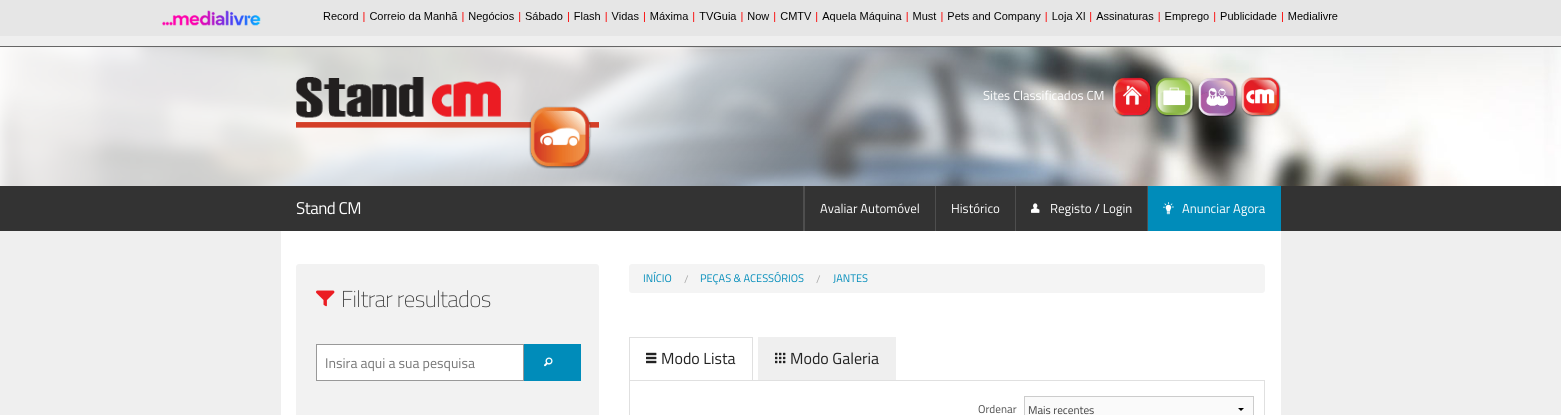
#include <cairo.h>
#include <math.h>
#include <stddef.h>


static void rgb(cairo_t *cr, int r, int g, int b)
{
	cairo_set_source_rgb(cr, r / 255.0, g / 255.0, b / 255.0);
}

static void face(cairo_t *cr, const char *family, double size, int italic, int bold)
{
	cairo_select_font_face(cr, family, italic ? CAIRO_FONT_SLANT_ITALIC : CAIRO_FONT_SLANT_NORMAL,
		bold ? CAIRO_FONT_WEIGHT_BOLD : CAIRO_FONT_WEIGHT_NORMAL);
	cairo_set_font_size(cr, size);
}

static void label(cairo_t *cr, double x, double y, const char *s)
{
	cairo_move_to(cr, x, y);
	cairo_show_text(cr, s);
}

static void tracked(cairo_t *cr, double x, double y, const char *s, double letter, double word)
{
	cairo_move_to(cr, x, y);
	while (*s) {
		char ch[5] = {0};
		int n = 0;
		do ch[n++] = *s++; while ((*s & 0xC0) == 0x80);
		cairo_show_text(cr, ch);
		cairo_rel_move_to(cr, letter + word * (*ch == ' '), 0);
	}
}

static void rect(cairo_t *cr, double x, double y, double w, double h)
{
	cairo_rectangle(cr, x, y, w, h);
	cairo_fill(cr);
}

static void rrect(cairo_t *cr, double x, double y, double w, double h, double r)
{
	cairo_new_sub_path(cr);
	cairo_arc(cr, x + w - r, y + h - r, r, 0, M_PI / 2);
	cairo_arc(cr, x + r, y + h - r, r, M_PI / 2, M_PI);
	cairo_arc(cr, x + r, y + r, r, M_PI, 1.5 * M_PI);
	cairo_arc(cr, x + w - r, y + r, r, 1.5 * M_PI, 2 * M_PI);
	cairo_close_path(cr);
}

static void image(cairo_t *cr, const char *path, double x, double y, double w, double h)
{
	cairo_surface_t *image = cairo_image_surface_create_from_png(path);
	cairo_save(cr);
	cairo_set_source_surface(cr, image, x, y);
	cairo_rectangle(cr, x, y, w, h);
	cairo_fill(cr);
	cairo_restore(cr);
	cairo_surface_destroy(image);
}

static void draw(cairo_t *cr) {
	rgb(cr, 239, 239, 239);
	cairo_paint(cr);
	image(cr, "image0.png", 0, 0, 1561, 36);
	rgb(cr, 102, 102, 102);
	rect(cr, 0, 46, 1561, 1);
	image(cr, "image1.png", 0, 47, 1561, 139);
	image(cr, "image2.png", 0, 47, 1130, 139);
	image(cr, "image3.png", 296, 77, 303, 92);
	face(cr, "Titillium Web", 13, 0, 0);
	rgb(cr, 255, 255, 255);
	label(cr, 983, 100, "Sites Classificados CM");
	image(cr, "image4.png", 1112, 77, 40, 40);
	image(cr, "image5.png", 1155, 77, 40, 40);
	image(cr, "image6.png", 1198, 78, 40, 39);
	image(cr, "image7.png", 1241, 77, 40, 40);
	rgb(cr, 51, 51, 51);
	rect(cr, 0, 186, 1561, 45);
	face(cr, "Titillium Web", 17, 0, 0);
	rgb(cr, 255, 255, 255);
	tracked(cr, 296, 214, "Stand CM", -0.5, 0);
	rgb(cr, 78, 78, 78);
	rect(cr, 803, 186, 2, 45);
	face(cr, "Titillium Web", 13, 0, 0);
	rgb(cr, 255, 255, 255);
	label(cr, 820, 213, "Avaliar Automóvel");
	rgb(cr, 78, 78, 78);
	rect(cr, 935, 186, 1, 45);
	rgb(cr, 255, 255, 255);
	label(cr, 951, 213, "Histórico");
	rgb(cr, 78, 78, 78);
	rect(cr, 1015, 186, 1, 45);
	image(cr, "image8.png", 1031, 203, 9, 10);
	rgb(cr, 255, 255, 255);
	label(cr, 1050, 213, "Registo / Login");
	rgb(cr, 78, 78, 78);
	rect(cr, 1147, 186, 1, 45);
	rgb(cr, 0, 140, 186);
	rect(cr, 1148, 186, 133, 45);
	image(cr, "image9.png", 1163, 202, 11, 13);
	rgb(cr, 255, 255, 255);
	label(cr, 1182, 213, "Anunciar Agora");
	rect(cr, 281, 231, 1000, 184);
	rgb(cr, 242, 242, 242);
	rrect(cr, 296, 264, 303, 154, 3);
	cairo_fill(cr);
	image(cr, "image10.png", 316, 290, 19, 17);
	face(cr, "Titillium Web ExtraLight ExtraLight", 23, 0, 0);
	rgb(cr, 51, 51, 51);
	tracked(cr, 341, 307, "Filtrar resultados", -0.6, 0);
	rgb(cr, 255, 255, 255);
	cairo_rectangle(cr, 316.5, 344.5, 207, 36);
	cairo_fill_preserve(cr);
	rgb(cr, 153, 153, 153);
	cairo_set_line_width(cr, 1);
	cairo_stroke(cr);
	face(cr, "Titillium Web", 14, 0, 0);
	rgb(cr, 117, 117, 117);
	label(cr, 325, 368, "Insira aqui a sua pesquisa");
	rgb(cr, 0, 140, 186);
	rect(cr, 524, 344, 57, 37);
	image(cr, "image11.png", 544, 357, 9, 10);
	rgb(cr, 244, 244, 244);
	rrect(cr, 629, 264, 636, 29, 3);
	cairo_fill(cr);
	face(cr, "Titillium Web", 11, 0, 0);
	rgb(cr, 0, 140, 186);
	label(cr, 643, 282, "INÍCIO");
	rgb(cr, 170, 170, 170);
	label(cr, 684, 283, "/");
	rgb(cr, 0, 140, 186);
	label(cr, 700, 282, "PEÇAS & ACESSÓRIOS");
	rgb(cr, 170, 170, 170);
	label(cr, 816, 283, "/");
	rgb(cr, 0, 140, 186);
	label(cr, 833, 282, "JANTES");
	rgb(cr, 224, 224, 224);
	rect(cr, 629, 337, 124, 1);
	rect(cr, 752, 337, 1, 43);
	rect(cr, 629, 337, 1, 43);
	image(cr, "image12.png", 646, 352, 11, 12);
	face(cr, "Titillium Web", 16, 0, 0);
	rgb(cr, 34, 34, 34);
	label(cr, 661, 364, "Modo Lista");
	rgb(cr, 239, 239, 239);
	rect(cr, 758, 337, 138, 1);
	rect(cr, 895, 337, 1, 43);
	rect(cr, 758, 337, 1, 43);
	rect(cr, 759, 338, 136, 42);
	image(cr, "image13.png", 775, 352, 11, 12);
	rgb(cr, 34, 34, 34);
	label(cr, 790, 364, "Modo Galeria");
	cairo_rectangle(cr, 629.5, 380.5, 635, 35);
	rgb(cr, 224, 224, 224);
	cairo_stroke(cr);
	face(cr, "Titillium Web", 11.25, 0, 0);
	rgb(cr, 77, 77, 77);
	label(cr, 978, 413, "Ordenar");
	rgb(cr, 250, 250, 250);
	rect(cr, 1025, 397, 228, 18);
	rgb(cr, 0, 0, 0);
	cairo_new_path(cr);
	cairo_move_to(cr, 1244, 408);
	cairo_line_to(cr, 1241, 411);
	cairo_line_to(cr, 1238, 408);
	cairo_close_path(cr);
	cairo_fill(cr);
	cairo_rectangle(cr, 1024.5, 396.5, 229, 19);
	rgb(cr, 204, 204, 204);
	cairo_stroke(cr);
	rgb(cr, 63, 63, 63);
	label(cr, 1028, 414, "Mais recentes");
}

int main(void) {
	cairo_surface_t *surface = cairo_image_surface_create(CAIRO_FORMAT_RGB24, 1561, 415);
	cairo_t *cr = cairo_create(surface);
	cairo_font_options_t *options = cairo_font_options_create();
	cairo_font_options_set_hint_metrics(options, CAIRO_HINT_METRICS_OFF);
	cairo_font_options_set_hint_style(options, CAIRO_HINT_STYLE_NONE);
	cairo_set_font_options(cr, options);
	cairo_set_miter_limit(cr, 4);
	draw(cr);
	cairo_surface_write_to_png(surface, "render.png");
	cairo_font_options_destroy(options);
	cairo_destroy(cr);
	cairo_surface_destroy(surface);
	return 0;
}
